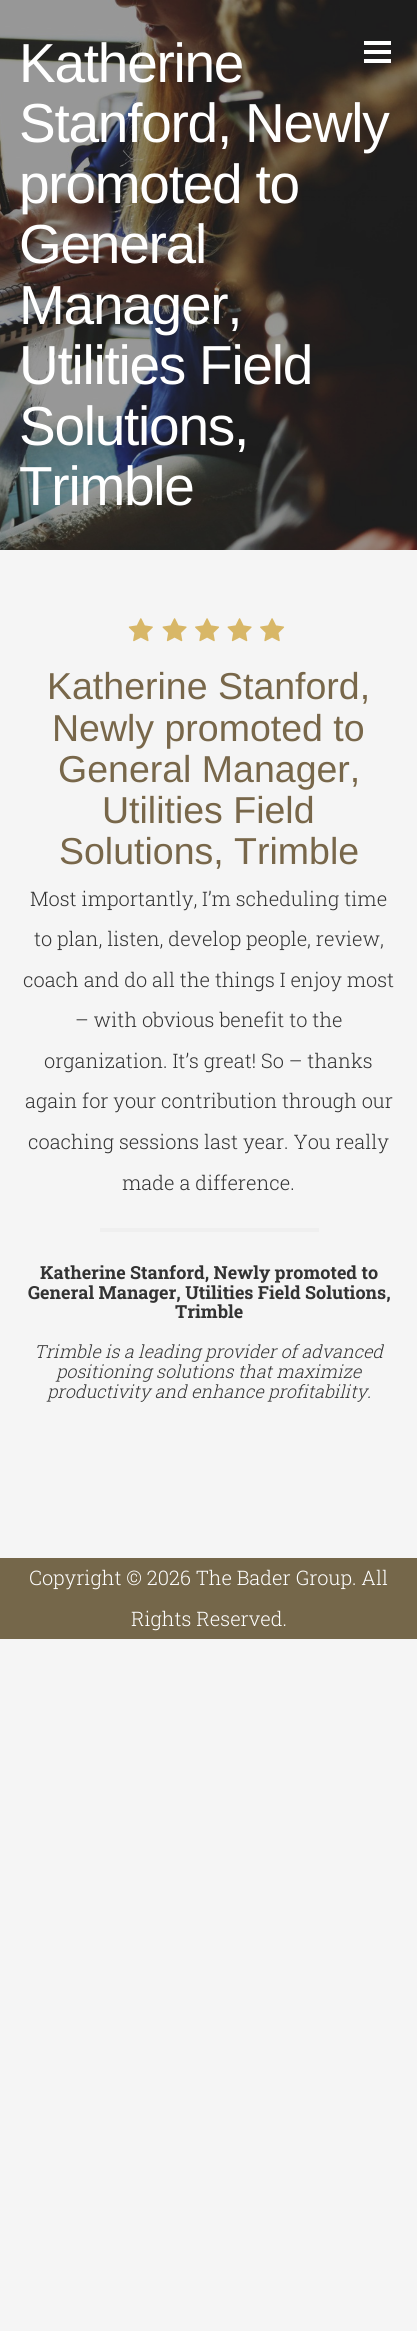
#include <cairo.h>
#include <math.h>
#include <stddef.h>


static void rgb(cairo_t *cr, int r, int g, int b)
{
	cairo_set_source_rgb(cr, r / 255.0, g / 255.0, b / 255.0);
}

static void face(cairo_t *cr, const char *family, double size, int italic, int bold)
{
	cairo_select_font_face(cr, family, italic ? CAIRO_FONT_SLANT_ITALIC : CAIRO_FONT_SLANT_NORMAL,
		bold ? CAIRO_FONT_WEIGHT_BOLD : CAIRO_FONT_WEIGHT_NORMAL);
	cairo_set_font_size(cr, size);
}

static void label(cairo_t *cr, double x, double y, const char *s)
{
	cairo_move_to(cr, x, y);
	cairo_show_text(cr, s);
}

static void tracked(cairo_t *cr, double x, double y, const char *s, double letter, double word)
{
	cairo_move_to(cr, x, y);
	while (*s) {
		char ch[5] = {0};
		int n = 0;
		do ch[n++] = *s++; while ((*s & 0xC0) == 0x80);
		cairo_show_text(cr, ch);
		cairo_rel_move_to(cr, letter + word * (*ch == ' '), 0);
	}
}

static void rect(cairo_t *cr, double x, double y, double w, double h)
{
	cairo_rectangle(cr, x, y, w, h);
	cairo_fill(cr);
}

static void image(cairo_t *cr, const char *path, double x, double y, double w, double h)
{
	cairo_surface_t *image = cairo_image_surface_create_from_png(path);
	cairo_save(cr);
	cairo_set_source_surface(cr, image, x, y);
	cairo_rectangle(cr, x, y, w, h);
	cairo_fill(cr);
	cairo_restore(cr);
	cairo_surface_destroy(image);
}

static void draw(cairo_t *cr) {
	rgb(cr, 245, 245, 245);
	cairo_paint(cr);
	image(cr, "image0.png", 0, 0, 417, 550);
	rgb(cr, 255, 255, 255);
	rect(cr, 364, 50, 27, 4);
	rect(cr, 364, 41, 27, 4);
	rect(cr, 364, 59, 27, 4);
	face(cr, "Liberation Sans", 55, 0, 0);
	tracked(cr, 19, 82, "Katherine", -1.25, 0);
	tracked(cr, 19, 142, "Stanford, Newly", -1.25, 0);
	tracked(cr, 19, 203, "promoted to", -1.25, 0);
	tracked(cr, 19, 263, "General", -1.25, 0);
	tracked(cr, 19, 324, "Manager,", -1.25, 0);
	tracked(cr, 19, 384, "Utilities Field", -1.25, 0);
	tracked(cr, 19, 445, "Solutions,", -1.25, 0);
	tracked(cr, 19, 505, "Trimble", -1.25, 0);
	image(cr, "image1.png", 128, 618, 25, 24);
	image(cr, "image2.png", 162, 618, 25, 24);
	image(cr, "image3.png", 195, 618, 25, 24);
	image(cr, "image2.png", 227, 618, 25, 24);
	image(cr, "image3.png", 260, 618, 25, 24);
	face(cr, "Liberation Sans", 37.5, 0, 0);
	rgb(cr, 120, 103, 74);
	label(cr, 47, 699, "Katherine Stanford,");
	label(cr, 52, 741, "Newly promoted to");
	label(cr, 58, 782, "General Manager,");
	label(cr, 102, 823, "Utilities Field");
	label(cr, 59, 864, "Solutions, Trimble");
	face(cr, "Roboto Slab Light", 20, 0, 0);
	rgb(cr, 51, 51, 51);
	label(cr, 30, 906, "Most importantly, I’m scheduling time");
	label(cr, 34, 946, "to plan, listen, develop people, review,");
	label(cr, 23, 987, "coach and do all the things I enjoy most");
	label(cr, 75, 1027, "– with obvious benefit to the");
	label(cr, 44, 1068, "organization. It’s great! So – thanks");
	label(cr, 25, 1108, "again for your contribution through our");
	label(cr, 28, 1149, "coaching sessions last year. You really");
	label(cr, 122, 1190, "made a difference.");
	rgb(cr, 239, 239, 239);
	rect(cr, 100, 1228, 219, 4);
	face(cr, "Roboto Slab", 18, 0, 1);
	rgb(cr, 51, 51, 51);
	label(cr, 40, 1279, "Katherine Stanford, Newly promoted to");
	label(cr, 28, 1299, "General Manager, Utilities Field Solutions,");
	label(cr, 175, 1318, "Trimble");
	face(cr, "Roboto Slab Light", 18, 1, 0);
	label(cr, 34, 1358, "Trimble is a leading provider of advanced");
	label(cr, 56, 1378, "positioning solutions that maximize");
	label(cr, 47, 1398, "productivity and enhance profitability.");
	rgb(cr, 117, 103, 74);
	rect(cr, 0, 1558, 417, 81);
	face(cr, "Roboto Slab Light", 20, 0, 0);
	rgb(cr, 255, 255, 255);
	label(cr, 29, 1585, "Copyright © 2026 The Bader Group. All");
	label(cr, 131, 1626, "Rights Reserved.");
}

int main(void) {
	cairo_surface_t *surface = cairo_image_surface_create(CAIRO_FORMAT_RGB24, 417, 2331);
	cairo_t *cr = cairo_create(surface);
	cairo_font_options_t *options = cairo_font_options_create();
	cairo_font_options_set_hint_metrics(options, CAIRO_HINT_METRICS_OFF);
	cairo_font_options_set_hint_style(options, CAIRO_HINT_STYLE_NONE);
	cairo_set_font_options(cr, options);
	cairo_set_miter_limit(cr, 4);
	draw(cr);
	cairo_surface_write_to_png(surface, "render.png");
	cairo_font_options_destroy(options);
	cairo_destroy(cr);
	cairo_surface_destroy(surface);
	return 0;
}
